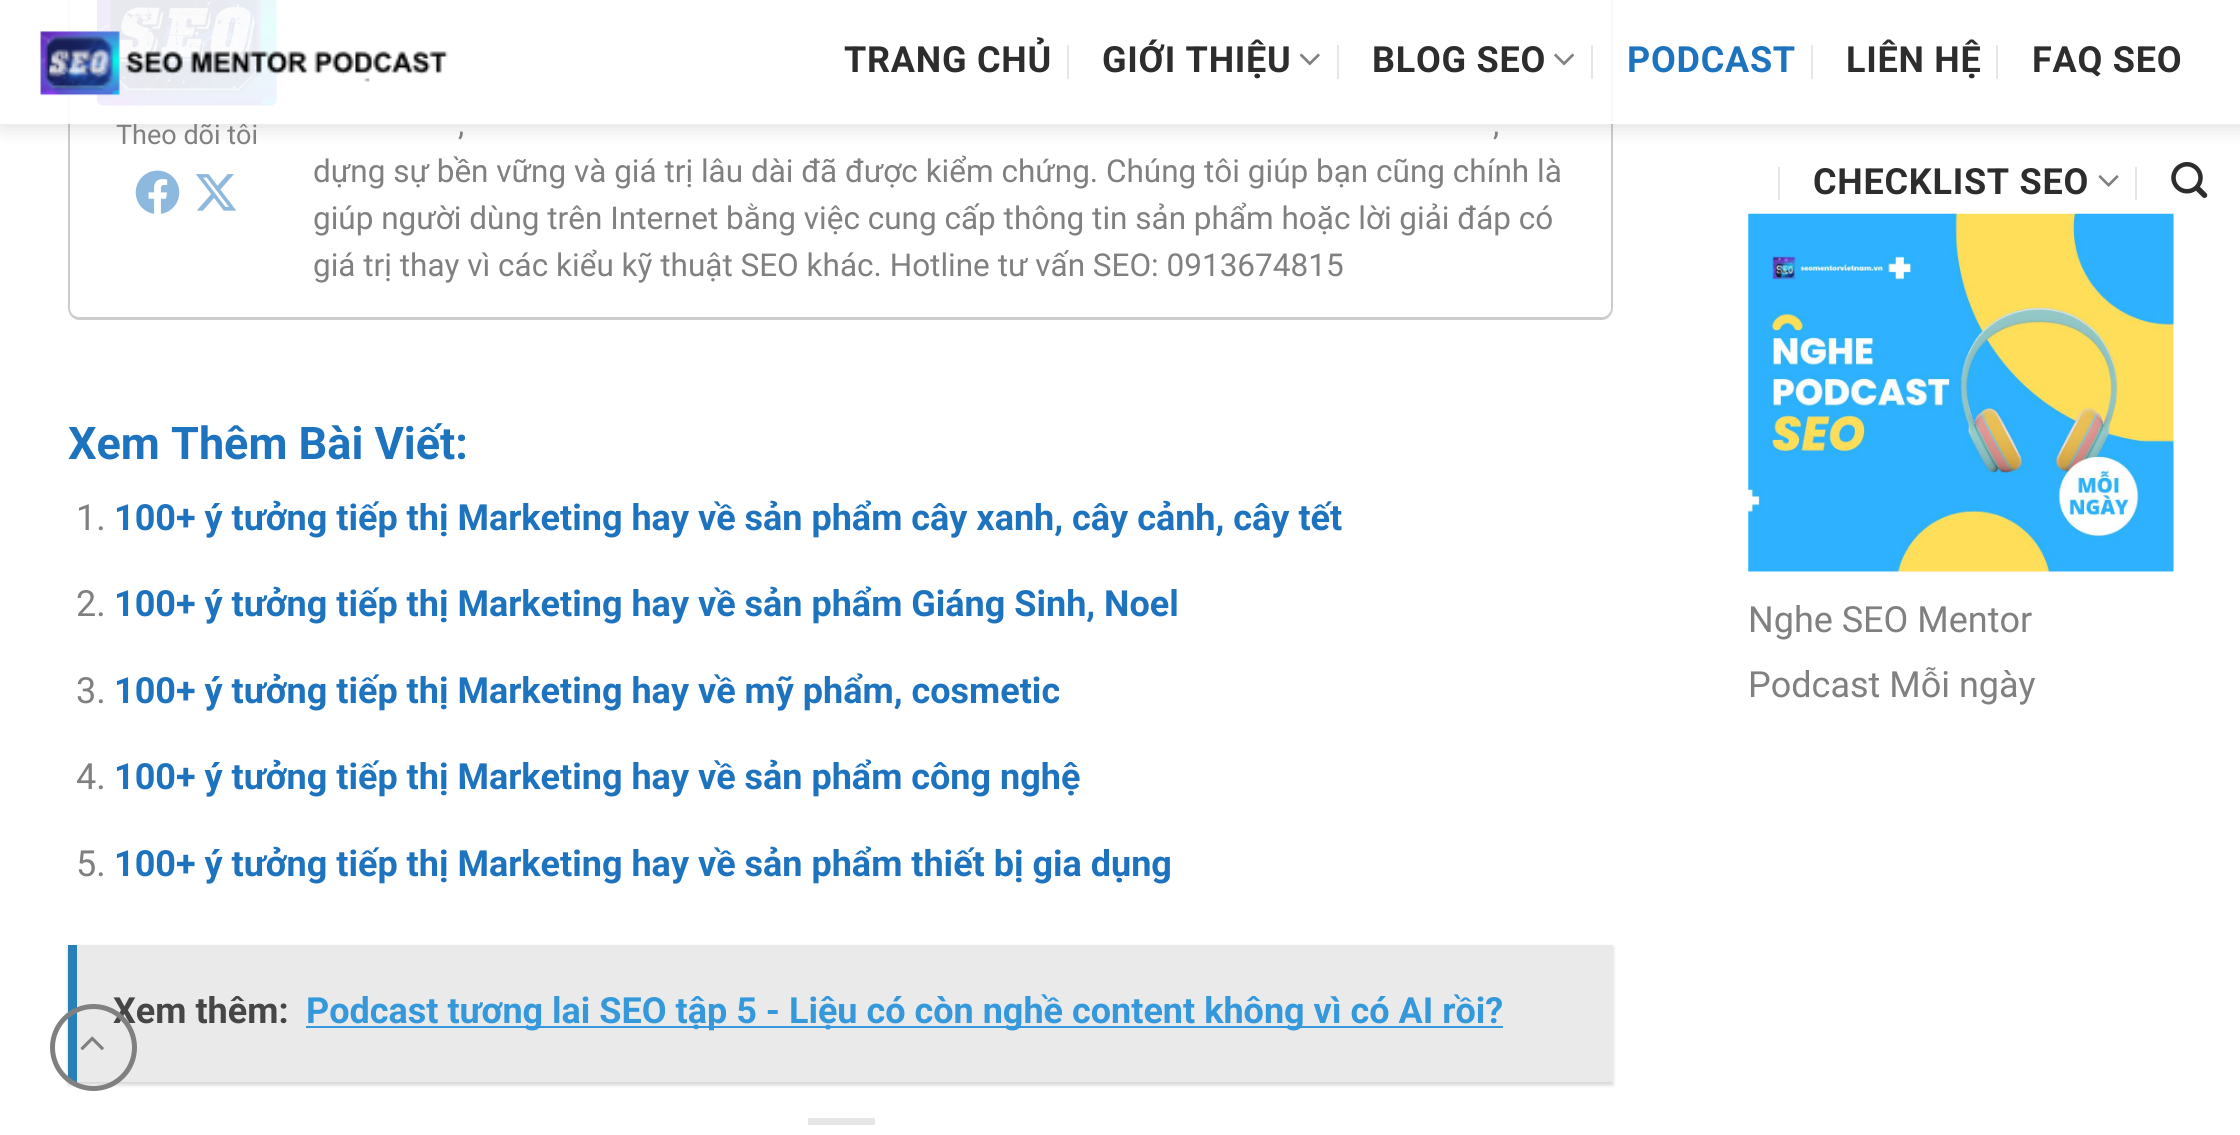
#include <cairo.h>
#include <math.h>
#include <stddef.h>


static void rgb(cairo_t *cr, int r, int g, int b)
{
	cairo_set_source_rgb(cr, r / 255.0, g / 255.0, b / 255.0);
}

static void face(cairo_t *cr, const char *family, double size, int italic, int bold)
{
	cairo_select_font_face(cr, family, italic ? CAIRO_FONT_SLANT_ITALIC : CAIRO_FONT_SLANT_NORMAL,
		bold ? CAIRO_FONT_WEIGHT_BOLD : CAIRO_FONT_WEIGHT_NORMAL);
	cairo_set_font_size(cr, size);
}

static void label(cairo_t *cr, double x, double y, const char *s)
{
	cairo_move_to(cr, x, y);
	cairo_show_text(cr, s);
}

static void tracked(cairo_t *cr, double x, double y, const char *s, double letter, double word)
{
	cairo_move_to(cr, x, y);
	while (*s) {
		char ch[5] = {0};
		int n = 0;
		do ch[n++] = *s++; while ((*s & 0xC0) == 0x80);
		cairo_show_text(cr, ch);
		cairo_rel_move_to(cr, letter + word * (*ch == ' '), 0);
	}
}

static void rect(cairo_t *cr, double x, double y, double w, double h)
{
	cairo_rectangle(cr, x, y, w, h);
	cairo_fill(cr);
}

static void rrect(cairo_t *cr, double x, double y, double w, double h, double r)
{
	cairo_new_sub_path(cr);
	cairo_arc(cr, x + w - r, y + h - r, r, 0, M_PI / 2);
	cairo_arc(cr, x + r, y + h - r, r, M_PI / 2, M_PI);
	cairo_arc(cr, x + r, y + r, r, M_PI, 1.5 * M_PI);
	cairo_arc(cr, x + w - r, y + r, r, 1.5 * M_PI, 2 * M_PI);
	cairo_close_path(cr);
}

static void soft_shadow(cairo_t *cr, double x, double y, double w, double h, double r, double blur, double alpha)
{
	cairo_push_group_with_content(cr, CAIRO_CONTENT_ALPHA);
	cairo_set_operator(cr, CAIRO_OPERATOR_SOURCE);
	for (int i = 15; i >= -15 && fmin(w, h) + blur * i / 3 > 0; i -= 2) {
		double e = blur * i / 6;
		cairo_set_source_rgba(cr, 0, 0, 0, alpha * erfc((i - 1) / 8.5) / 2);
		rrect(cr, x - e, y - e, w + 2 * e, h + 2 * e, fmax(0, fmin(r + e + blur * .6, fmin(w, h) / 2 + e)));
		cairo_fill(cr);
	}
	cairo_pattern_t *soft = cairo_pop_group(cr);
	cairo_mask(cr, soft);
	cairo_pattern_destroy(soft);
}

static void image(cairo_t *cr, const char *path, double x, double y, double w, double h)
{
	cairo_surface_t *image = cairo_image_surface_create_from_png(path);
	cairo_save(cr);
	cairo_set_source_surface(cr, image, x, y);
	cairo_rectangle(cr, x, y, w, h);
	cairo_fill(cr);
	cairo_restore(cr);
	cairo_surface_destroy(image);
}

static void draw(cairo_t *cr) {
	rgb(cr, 255, 255, 255);
	cairo_paint(cr);
	rgb(cr, 204, 204, 204);
	cairo_set_fill_rule(cr, CAIRO_FILL_RULE_EVEN_ODD);
	cairo_new_path(cr);
	cairo_move_to(cr, 68, -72);
	cairo_line_to(cr, 1613, -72);
	cairo_line_to(cr, 1613, 308);
	cairo_curve_to(cr, 1613, 314, 1608, 320, 1602, 320);
	cairo_line_to(cr, 79, 320);
	cairo_curve_to(cr, 73, 320, 68, 314, 68, 308);
	cairo_close_path(cr);
	cairo_move_to(cr, 70, -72);
	cairo_line_to(cr, 1611, -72);
	cairo_line_to(cr, 1611, 308);
	cairo_curve_to(cr, 1611, 313, 1607, 317, 1602, 317);
	cairo_line_to(cr, 79, 317);
	cairo_curve_to(cr, 74, 317, 70, 313, 70, 308);
	cairo_close_path(cr);
	cairo_fill(cr);
	image(cr, "image5.png", 96, 0, 181, 106);
	cairo_save(cr);
	cairo_new_path(cr);
	cairo_move_to(cr, 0, 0);
	cairo_line_to(cr, 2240, 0);
	cairo_line_to(cr, 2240, 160);
	cairo_line_to(cr, 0, 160);
	cairo_close_path(cr);
	cairo_move_to(cr, 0, 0);
	cairo_line_to(cr, 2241, 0);
	cairo_line_to(cr, 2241, 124);
	cairo_line_to(cr, 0, 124);
	cairo_close_path(cr);
	cairo_clip(cr);
	rgb(cr, 0, 0, 0);
	soft_shadow(cr, 2, 2, 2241, 124, 0, 11, 0.15);
	cairo_restore(cr);
	face(cr, "Roboto", 27, 0, 0);
	rgb(cr, 128, 128, 128);
	label(cr, 116, 144, "Theo dõi tôi");
	cairo_set_source_rgba(cr, 1, 1, 1, 0.9);
	rect(cr, 2, 0, 2238, 124);
	image(cr, "image0.png", 40, 31, 409, 65);
	face(cr, "Roboto", 36, 0, 1);
	rgb(cr, 45, 45, 45);
	tracked(cr, 844, 72, "TRANG CHỦ", 0.75, 0);
	cairo_set_source_rgba(cr, 0, 0, 0, 0.1);
	rect(cr, 1067, 45, 2, 34);
	rgb(cr, 45, 45, 45);
	tracked(cr, 1102, 72, "GIỚI THIỆU", 0.75, 0);
	image(cr, "image1.png", 1299, 53, 21, 13);
	cairo_set_source_rgba(cr, 0, 0, 0, 0.1);
	rect(cr, 1337, 45, 2, 34);
	rgb(cr, 45, 45, 45);
	tracked(cr, 1372, 72, "BLOG SEO", 0.75, 0);
	image(cr, "image2.png", 1554, 53, 20, 13);
	rgb(cr, 230, 230, 230);
	rect(cr, 1591, 45, 2, 34);
	rgb(cr, 30, 115, 190);
	tracked(cr, 1627, 72, "PODCAST", 0.75, 0);
	rgb(cr, 230, 230, 230);
	rect(cr, 1811, 45, 2, 34);
	rgb(cr, 45, 45, 45);
	tracked(cr, 1846, 72, "LIÊN HỆ", 0.75, 0);
	cairo_set_source_rgba(cr, 0, 0, 0, 0.1);
	rect(cr, 1996, 45, 2, 34);
	rgb(cr, 45, 45, 45);
	tracked(cr, 2032, 72, "FAQ SEO", 0.75, 0);
	rgb(cr, 230, 230, 230);
	rect(cr, 1778, 167, 2, 33);
	rgb(cr, 45, 45, 45);
	tracked(cr, 1813, 194, "CHECKLIST SEO", 0.75, 0);
	image(cr, "image3.png", 2098, 175, 21, 12);
	rgb(cr, 230, 230, 230);
	rect(cr, 2135, 167, 2, 33);
	image(cr, "image4.png", 2171, 162, 37, 36);
	image(cr, "image6.png", 135, 170, 45, 44);
	image(cr, "image7.png", 196, 174, 41, 37);
	face(cr, "Roboto", 31.5, 0, 0);
	rgb(cr, 128, 128, 128);
	label(cr, 458, 135, ",");
	label(cr, 1493, 135, ",");
	label(cr, 313, 182, "dựng sự bền vững và giá trị lâu dài đã được kiểm chứng. Chúng tôi giúp bạn cũng chính là");
	label(cr, 313, 229, "giúp người dùng trên Internet bằng việc cung cấp thông tin sản phẩm hoặc lời giải đáp có");
	label(cr, 313, 276, "giá trị thay vì các kiểu kỹ thuật SEO khác. Hotline tư vấn SEO: 0913674815");
	face(cr, "Roboto", 45, 0, 1);
	rgb(cr, 30, 115, 190);
	label(cr, 68, 459, "Xem Thêm Bài Viết:");
	face(cr, "Roboto", 36, 0, 0);
	rgb(cr, 128, 128, 128);
	label(cr, 76, 530, "1.");
	face(cr, "Roboto", 36, 0, 1);
	rgb(cr, 30, 115, 190);
	label(cr, 114, 530, "100+ ý tưởng tiếp thị Marketing hay về sản phẩm cây xanh, cây cảnh, cây tết");
	face(cr, "Roboto", 36, 0, 0);
	rgb(cr, 128, 128, 128);
	label(cr, 76, 616, "2.");
	face(cr, "Roboto", 36, 0, 1);
	rgb(cr, 30, 115, 190);
	label(cr, 114, 616, "100+ ý tưởng tiếp thị Marketing hay về sản phẩm Giáng Sinh, Noel");
	face(cr, "Roboto", 36, 0, 0);
	rgb(cr, 128, 128, 128);
	label(cr, 76, 703, "3.");
	face(cr, "Roboto", 36, 0, 1);
	rgb(cr, 30, 115, 190);
	label(cr, 114, 703, "100+ ý tưởng tiếp thị Marketing hay về mỹ phẩm, cosmetic");
	face(cr, "Roboto", 36, 0, 0);
	rgb(cr, 128, 128, 128);
	label(cr, 76, 789, "4.");
	face(cr, "Roboto", 36, 0, 1);
	rgb(cr, 30, 115, 190);
	label(cr, 114, 789, "100+ ý tưởng tiếp thị Marketing hay về sản phẩm công nghệ");
	face(cr, "Roboto", 36, 0, 0);
	rgb(cr, 128, 128, 128);
	label(cr, 76, 876, "5.");
	face(cr, "Roboto", 36, 0, 1);
	rgb(cr, 30, 115, 190);
	label(cr, 114, 876, "100+ ý tưởng tiếp thị Marketing hay về sản phẩm thiết bị gia dụng");
	rgb(cr, 0, 0, 0);
	soft_shadow(cr, 68, 947, 1545, 138, 0, 2, 0.17);
	rgb(cr, 234, 234, 234);
	rect(cr, 77, 945, 1536, 137);
	rgb(cr, 41, 128, 185);
	rect(cr, 68, 945, 9, 137);
	rgb(cr, 70, 70, 70);
	label(cr, 113, 1023, "Xem thêm:");
	rgb(cr, 52, 152, 219);
	rect(cr, 306, 1026, 1197, 2);
	label(cr, 306, 1023, "Podcast tương lai SEO tập 5 - Liệu có còn nghề content không vì có AI rồi?");
	rgb(cr, 230, 230, 230);
	rect(cr, 808, 1118, 67, 7);
	image(cr, "image8.png", 1748, 213, 426, 359);
	face(cr, "Roboto", 36, 0, 0);
	rgb(cr, 128, 128, 128);
	label(cr, 1748, 632, "Nghe SEO Mentor");
	label(cr, 1748, 697, "Podcast Mỗi ngày");
	cairo_new_path(cr);
	cairo_arc(cr, 93.5, 1047.5, 41, 0, 2 * M_PI);
	cairo_set_line_width(cr, 5);
	cairo_stroke(cr);
	image(cr, "image9.png", 80, 1036, 24, 14);
}

int main(void) {
	cairo_surface_t *surface = cairo_image_surface_create(CAIRO_FORMAT_RGB24, 2240, 1135);
	cairo_t *cr = cairo_create(surface);
	cairo_font_options_t *options = cairo_font_options_create();
	cairo_font_options_set_hint_metrics(options, CAIRO_HINT_METRICS_OFF);
	cairo_font_options_set_hint_style(options, CAIRO_HINT_STYLE_NONE);
	cairo_set_font_options(cr, options);
	cairo_set_miter_limit(cr, 4);
	draw(cr);
	cairo_surface_write_to_png(surface, "render.png");
	cairo_font_options_destroy(options);
	cairo_destroy(cr);
	cairo_surface_destroy(surface);
	return 0;
}
